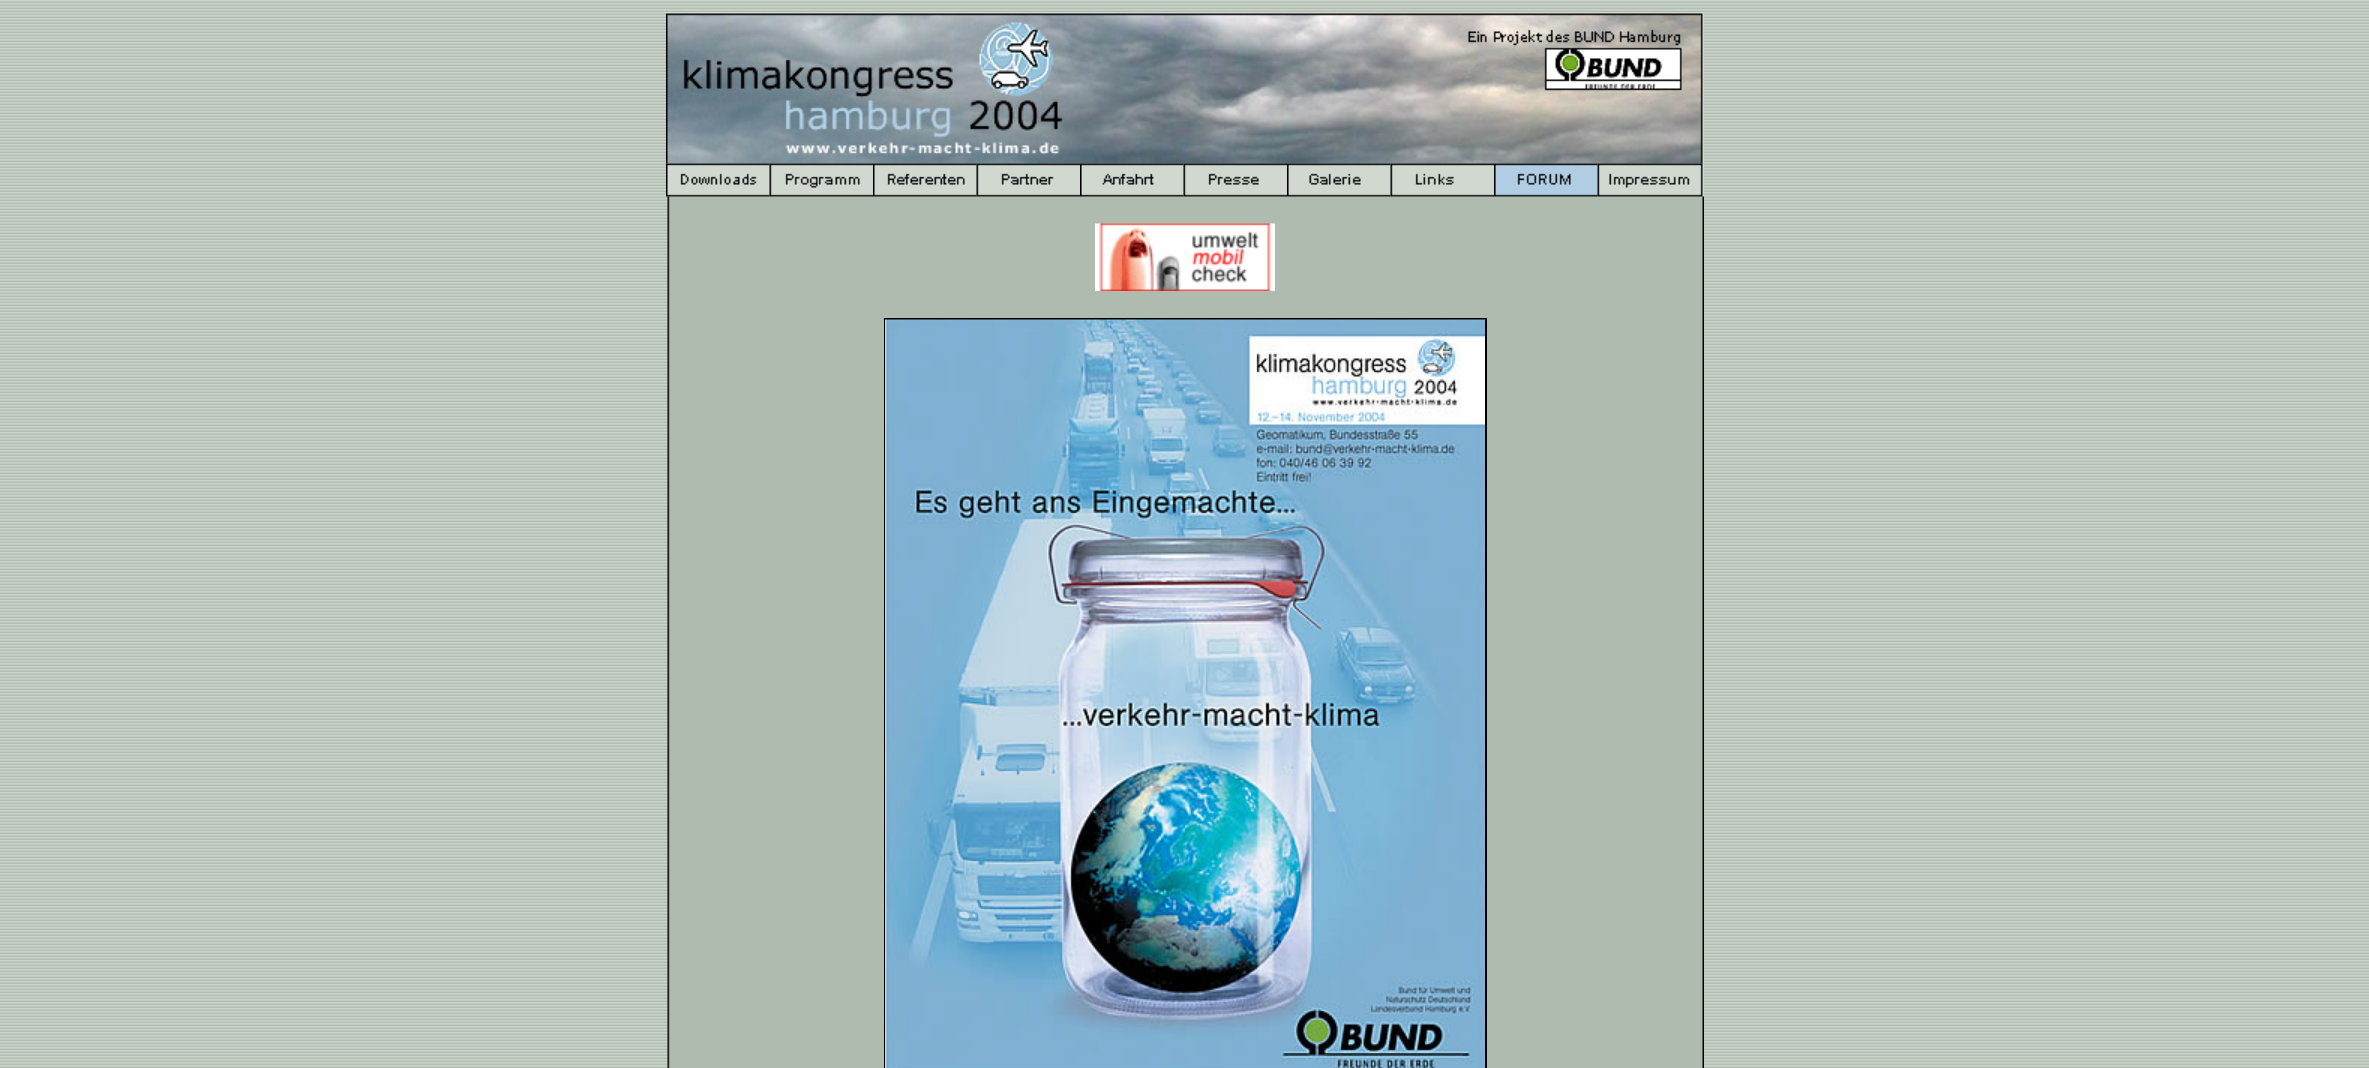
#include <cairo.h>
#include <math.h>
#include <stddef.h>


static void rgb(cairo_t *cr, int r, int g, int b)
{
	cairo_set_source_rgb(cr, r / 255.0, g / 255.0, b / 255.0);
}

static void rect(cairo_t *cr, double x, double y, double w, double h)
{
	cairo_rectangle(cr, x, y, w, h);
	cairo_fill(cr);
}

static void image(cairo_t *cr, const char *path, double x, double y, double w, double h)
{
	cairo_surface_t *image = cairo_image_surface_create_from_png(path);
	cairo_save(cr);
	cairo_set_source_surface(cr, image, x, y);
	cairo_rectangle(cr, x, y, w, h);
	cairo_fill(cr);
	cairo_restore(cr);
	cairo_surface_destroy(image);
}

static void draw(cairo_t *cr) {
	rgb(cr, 255, 255, 255);
	cairo_paint(cr);
	image(cr, "image0.png", 0, 0, 2369, 1068);
	rgb(cr, 208, 216, 208);
	rect(cr, 666, 12, 1038, 185);
	image(cr, "image1.png", 666, 13, 414, 151);
	image(cr, "image2.png", 1080, 13, 378, 151);
	image(cr, "image3.png", 1458, 13, 245, 89);
	image(cr, "image4.png", 1458, 102, 245, 62);
	image(cr, "image15.png", 667, 196, 1037, 872);
	image(cr, "image5.png", 666, 163, 104, 34);
	image(cr, "image6.png", 769, 163, 104, 34);
	image(cr, "image7.png", 873, 163, 104, 34);
	image(cr, "image8.png", 976, 163, 104, 34);
	image(cr, "image9.png", 1080, 163, 104, 34);
	image(cr, "image10.png", 1183, 163, 104, 34);
	image(cr, "image11.png", 1287, 163, 104, 34);
	image(cr, "image12.png", 1390, 163, 104, 34);
	image(cr, "image13.png", 1494, 163, 104, 34);
	image(cr, "image14.png", 1597, 163, 106, 34);
	image(cr, "image16.png", 1095, 223, 180, 68);
	cairo_rectangle(cr, 885, 319, 601, 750);
	rgb(cr, 0, 0, 0);
	cairo_stroke(cr);
	image(cr, "image17.png", 885, 319, 600, 749);
}

int main(void) {
	cairo_surface_t *surface = cairo_image_surface_create(CAIRO_FORMAT_RGB24, 2369, 1068);
	cairo_t *cr = cairo_create(surface);
	cairo_font_options_t *options = cairo_font_options_create();
	cairo_font_options_set_hint_metrics(options, CAIRO_HINT_METRICS_OFF);
	cairo_font_options_set_hint_style(options, CAIRO_HINT_STYLE_NONE);
	cairo_set_font_options(cr, options);
	cairo_set_miter_limit(cr, 4);
	draw(cr);
	cairo_surface_write_to_png(surface, "render.png");
	cairo_font_options_destroy(options);
	cairo_destroy(cr);
	cairo_surface_destroy(surface);
	return 0;
}
